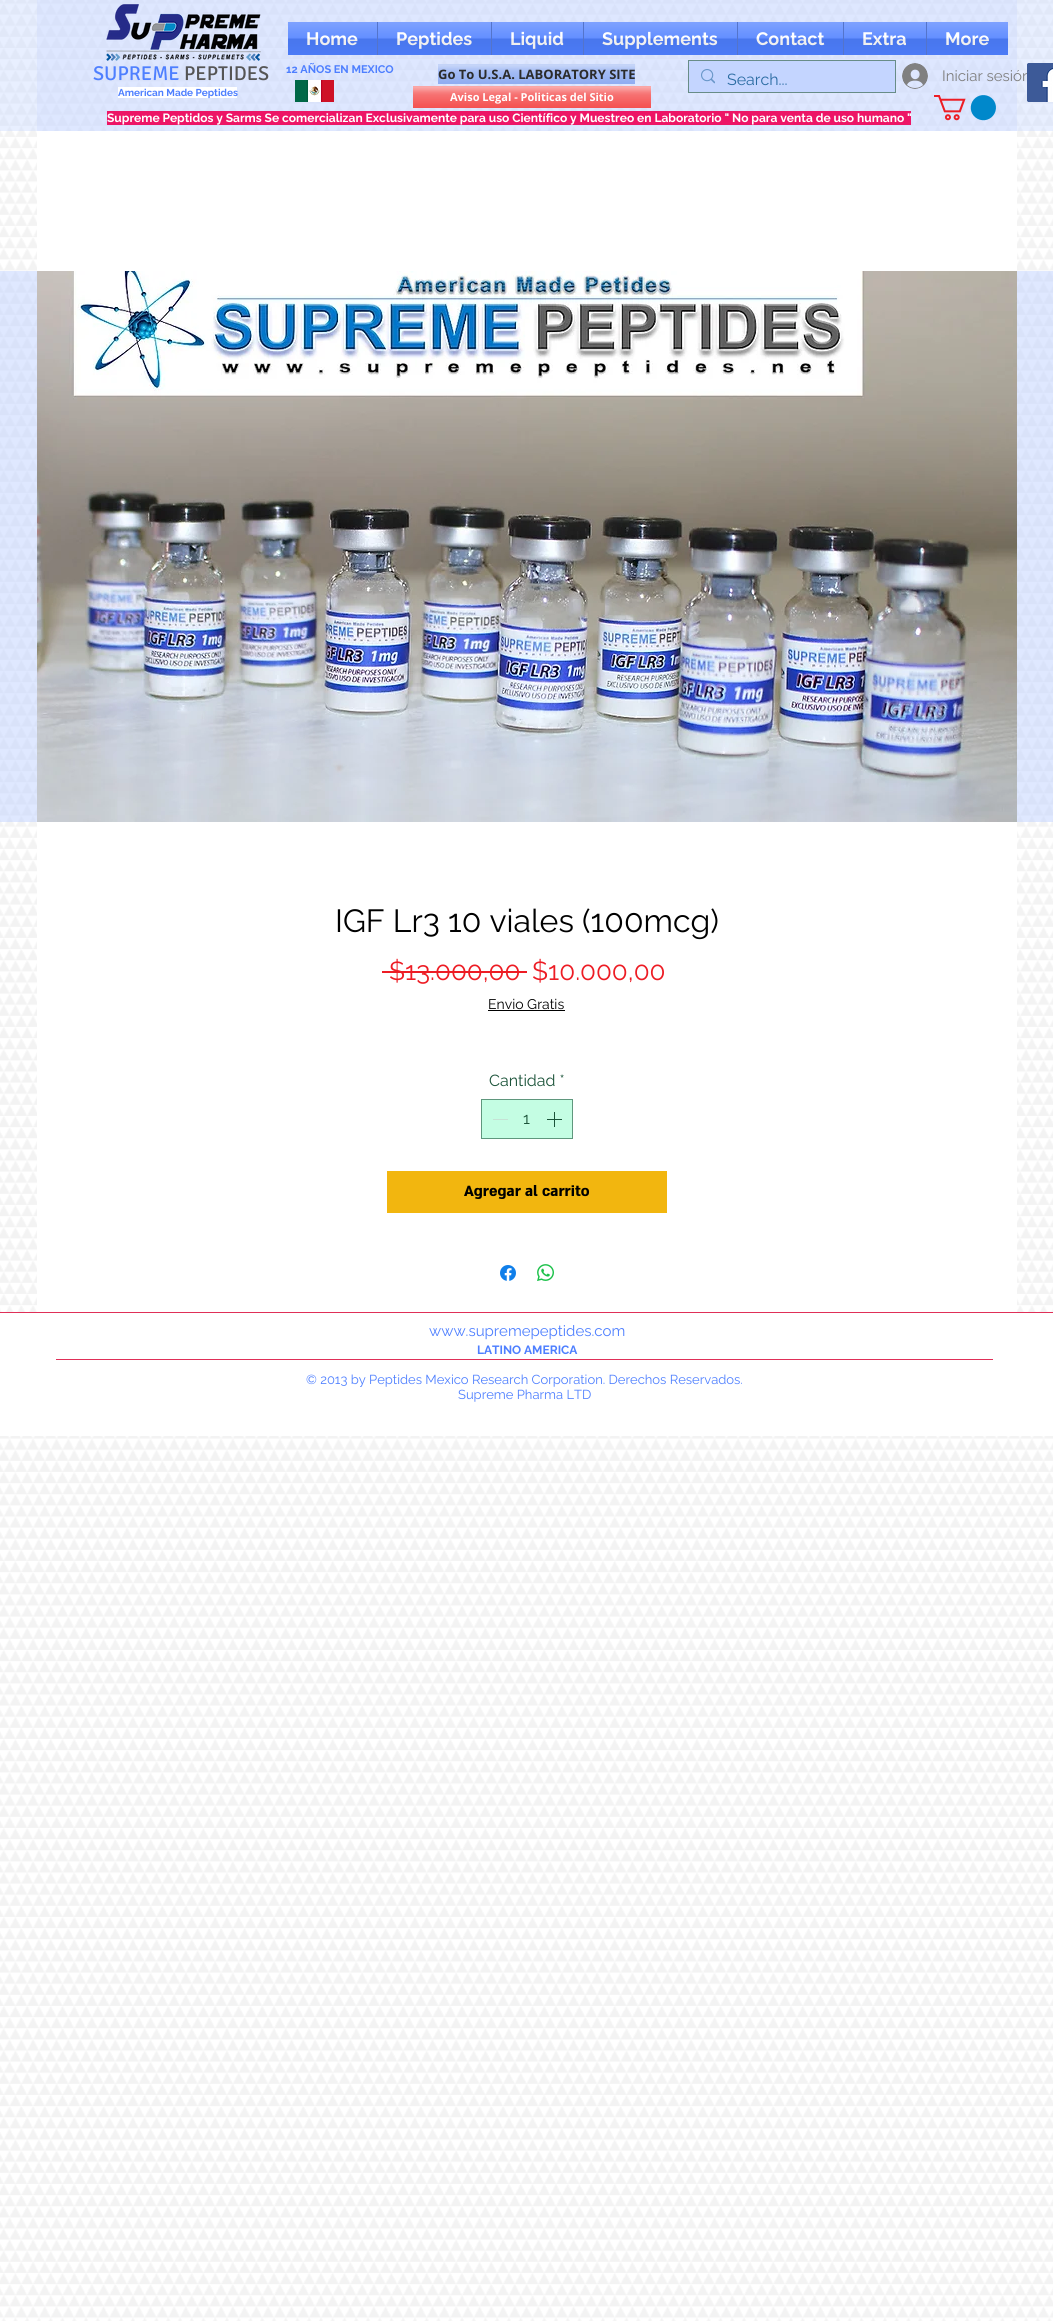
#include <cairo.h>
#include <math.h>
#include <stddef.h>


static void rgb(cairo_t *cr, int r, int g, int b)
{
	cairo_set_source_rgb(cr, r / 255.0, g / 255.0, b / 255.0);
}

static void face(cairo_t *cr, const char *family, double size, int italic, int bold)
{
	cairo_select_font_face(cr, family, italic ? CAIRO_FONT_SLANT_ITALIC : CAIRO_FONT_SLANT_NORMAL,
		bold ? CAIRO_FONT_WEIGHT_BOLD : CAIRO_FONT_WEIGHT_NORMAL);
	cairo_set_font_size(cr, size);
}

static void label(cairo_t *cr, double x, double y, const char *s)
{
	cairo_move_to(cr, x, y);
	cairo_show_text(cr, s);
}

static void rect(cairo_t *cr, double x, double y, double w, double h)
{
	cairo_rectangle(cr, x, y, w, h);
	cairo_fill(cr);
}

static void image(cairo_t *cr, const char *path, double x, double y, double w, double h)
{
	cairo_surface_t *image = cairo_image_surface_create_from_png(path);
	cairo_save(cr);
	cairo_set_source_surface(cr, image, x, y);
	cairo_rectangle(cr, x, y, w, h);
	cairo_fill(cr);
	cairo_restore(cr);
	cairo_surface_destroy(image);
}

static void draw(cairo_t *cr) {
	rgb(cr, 255, 255, 255);
	cairo_paint(cr);
	image(cr, "image0.png", 0, 0, 1053, 2321);
	cairo_set_source_rgba(cr, 0.769, 0.835, 1, 0.38);
	rect(cr, 0, 0, 1053, 131);
	cairo_set_source_rgba(cr, 0.769, 0.835, 1, 0.27);
	rect(cr, 37, 0, 980, 131);
	image(cr, "image1.png", 106, 4, 155, 57);
	rgb(cr, 78, 127, 255);
	rect(cr, 288, 22, 89, 33);
	face(cr, "Raleway", 18, 0, 1);
	rgb(cr, 255, 255, 255);
	label(cr, 306, 45, "Home");
	image(cr, "image2.png", 288, 22, 89, 33);
	rgb(cr, 78, 127, 255);
	rect(cr, 378, 22, 113, 33);
	rgb(cr, 84, 116, 202);
	rect(cr, 377, 22, 1, 33);
	rgb(cr, 255, 255, 255);
	label(cr, 396, 45, "Peptides");
	image(cr, "image3.png", 378, 22, 113, 33);
	rgb(cr, 78, 127, 255);
	rect(cr, 492, 22, 91, 33);
	rgb(cr, 84, 116, 202);
	rect(cr, 491, 22, 1, 33);
	rgb(cr, 255, 255, 255);
	label(cr, 510, 45, "Liquid");
	image(cr, "image4.png", 492, 22, 91, 33);
	rgb(cr, 78, 127, 255);
	rect(cr, 584, 22, 153, 33);
	rgb(cr, 84, 116, 202);
	rect(cr, 583, 22, 1, 33);
	rgb(cr, 255, 255, 255);
	label(cr, 602, 45, "Supplements");
	image(cr, "image5.png", 584, 22, 153, 33);
	rgb(cr, 78, 127, 255);
	rect(cr, 738, 22, 105, 33);
	rgb(cr, 84, 116, 202);
	rect(cr, 737, 22, 1, 33);
	rgb(cr, 255, 255, 255);
	label(cr, 756, 45, "Contact");
	image(cr, "image6.png", 738, 22, 105, 33);
	rgb(cr, 78, 127, 255);
	rect(cr, 844, 22, 82, 33);
	rgb(cr, 84, 116, 202);
	rect(cr, 843, 22, 1, 33);
	rgb(cr, 255, 255, 255);
	label(cr, 862, 45, "Extra");
	image(cr, "image7.png", 844, 22, 82, 33);
	rgb(cr, 78, 127, 255);
	rect(cr, 927, 22, 81, 33);
	rgb(cr, 84, 116, 202);
	rect(cr, 926, 22, 1, 33);
	rgb(cr, 255, 255, 255);
	label(cr, 945, 45, "More");
	image(cr, "image8.png", 927, 22, 81, 33);
	face(cr, "Signika", 20, 0, 0);
	rgb(cr, 78, 127, 255);
	label(cr, 93, 80, "SUPREME");
	rgb(cr, 85, 85, 85);
	label(cr, 184, 80, "PEPTIDES");
	face(cr, "Raleway", 11, 0, 1);
	rgb(cr, 78, 127, 255);
	label(cr, 286, 73, "12 AÑOS EN MEXICO");
	rgb(cr, 114, 151, 238);
	rect(cr, 438, 64, 197, 20);
	image(cr, "image9.png", 438, 64, 197, 20);
	face(cr, "Open Sans", 13, 0, 1);
	rgb(cr, 43, 43, 43);
	label(cr, 438, 79, "Go To U.S.A. LABORATORY SITE");
	cairo_rectangle(cr, 688.5, 60.5, 207, 32);
	cairo_set_source_rgba(cr, 0.106, 0.325, 0.224, 0.6);
	cairo_set_line_width(cr, 1);
	cairo_stroke(cr);
	rgb(cr, 196, 213, 255);
	rect(cr, 689, 61, 206, 31);
	image(cr, "image10.png", 701, 69, 14, 15);
	face(cr, "Raleway", 16, 0, 0);
	rgb(cr, 43, 108, 163);
	label(cr, 727, 85, "Search...");
	image(cr, "image11.png", 902, 63, 26, 26);
	face(cr, "Raleway", 15, 0, 0);
	rgb(cr, 128, 128, 128);
	label(cr, 942, 81, "Iniciar sesión");
	image(cr, "image12.png", 1027, 63, 26, 39);
	rgb(cr, 255, 255, 255);
	rect(cr, 118, 87, 119, 11);
	face(cr, "Raleway", 10, 0, 1);
	rgb(cr, 78, 127, 255);
	label(cr, 118, 96, "American Made Peptides");
	image(cr, "image13.png", 295, 80, 39, 22);
	rgb(cr, 242, 41, 41);
	rect(cr, 413, 86, 238, 22);
	image(cr, "image14.png", 413, 86, 238, 22);
	face(cr, "Open Sans", 11, 0, 1);
	rgb(cr, 255, 255, 255);
	label(cr, 450, 101, "Aviso Legal - Politicas del Sitio");
	image(cr, "image15.png", 934, 95, 62, 26);
	rgb(cr, 237, 21, 102);
	rect(cr, 107, 111, 804, 14);
	face(cr, "Raleway", 12, 0, 1);
	rgb(cr, 255, 255, 255);
	label(cr, 107, 122, "Supreme Peptidos y Sarms Se comercializan Exclusivamente para uso Científico y Muestreo en Laboratorio \" No para venta de uso humano \"");
	rect(cr, 37, 131, 980, 1181);
	cairo_set_source_rgba(cr, 0.769, 0.835, 1, 0.54);
	rect(cr, 0, 271, 1053, 551);
	image(cr, "image16.png", 37, 271, 980, 551);
	face(cr, "Raleway", 32, 0, 0);
	rgb(cr, 0, 0, 0);
	label(cr, 335, 932, "IGF Lr3 10 viales (100mcg)");
	face(cr, "Raleway", 26, 0, 0);
	rgb(cr, 237, 28, 36);
	label(cr, 389, 980, "$13.000,00");
	rect(cr, 382, 971, 145, 2);
	label(cr, 532, 980, "$10.000,00");
	face(cr, "Raleway", 14, 0, 0);
	rgb(cr, 0, 0, 0);
	label(cr, 488, 1009, "Envio Gratis");
	rect(cr, 488, 1010, 77, 1);
	face(cr, "Raleway", 16, 0, 0);
	rgb(cr, 27, 83, 57);
	label(cr, 489, 1086, "Cantidad *");
	rgb(cr, 196, 253, 227);
	cairo_rectangle(cr, 481.5, 1099.5, 91, 39);
	cairo_fill_preserve(cr);
	rgb(cr, 95, 151, 125);
	cairo_stroke(cr);
	rgb(cr, 198, 226, 213);
	rect(cr, 493, 1119, 15, 1);
	rgb(cr, 27, 83, 57);
	label(cr, 523, 1124, "1");
	image(cr, "image17.png", 547, 1112, 15, 15);
	rgb(cr, 242, 182, 15);
	rect(cr, 387, 1171, 280, 42);
	face(cr, "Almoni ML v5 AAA", 17, 0, 1);
	rgb(cr, 0, 0, 0);
	label(cr, 464, 1196, "Agregar al carrito");
	image(cr, "image18.png", 500, 1265, 16, 16);
	image(cr, "image19.png", 537, 1264, 17, 17);
	rgb(cr, 255, 255, 255);
	rect(cr, 0, 1313, 1053, 123);
	rgb(cr, 224, 47, 88);
	rect(cr, 0, 1312, 1053, 1);
	face(cr, "Raleway", 15, 0, 0);
	rgb(cr, 78, 127, 255);
	label(cr, 429, 1336, "www.supremepeptides.com");
	face(cr, "Raleway", 12, 0, 1);
	label(cr, 477, 1354, "LATINO AMERICA");
	rgb(cr, 224, 47, 88);
	rect(cr, 56, 1359, 937, 1);
	face(cr, "Raleway", 13, 0, 0);
	rgb(cr, 78, 127, 255);
	label(cr, 306, 1384, "© 2013 by Peptides Mexico Research Corporation. Derechos Reservados.");
	label(cr, 458, 1399, "Supreme Pharma LTD");
}

int main(void) {
	cairo_surface_t *surface = cairo_image_surface_create(CAIRO_FORMAT_RGB24, 1053, 2321);
	cairo_t *cr = cairo_create(surface);
	cairo_font_options_t *options = cairo_font_options_create();
	cairo_font_options_set_hint_metrics(options, CAIRO_HINT_METRICS_OFF);
	cairo_font_options_set_hint_style(options, CAIRO_HINT_STYLE_NONE);
	cairo_set_font_options(cr, options);
	cairo_set_miter_limit(cr, 4);
	draw(cr);
	cairo_surface_write_to_png(surface, "render.png");
	cairo_font_options_destroy(options);
	cairo_destroy(cr);
	cairo_surface_destroy(surface);
	return 0;
}
